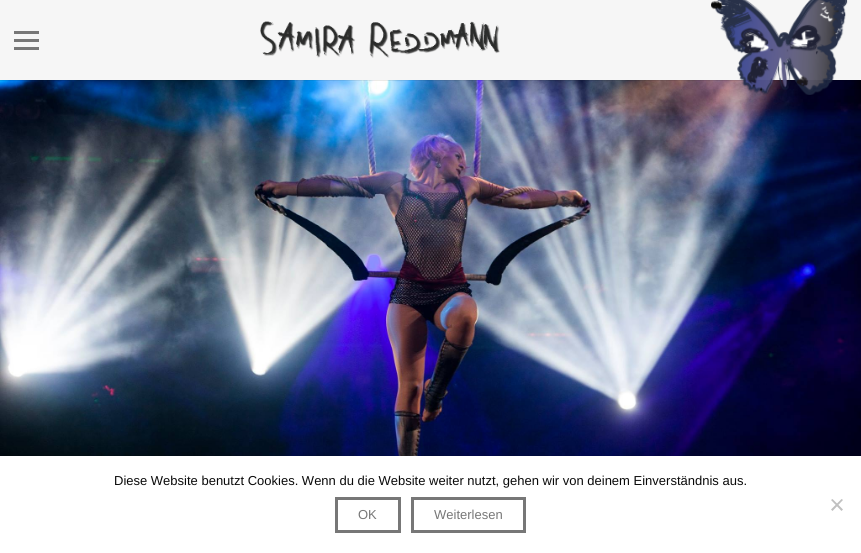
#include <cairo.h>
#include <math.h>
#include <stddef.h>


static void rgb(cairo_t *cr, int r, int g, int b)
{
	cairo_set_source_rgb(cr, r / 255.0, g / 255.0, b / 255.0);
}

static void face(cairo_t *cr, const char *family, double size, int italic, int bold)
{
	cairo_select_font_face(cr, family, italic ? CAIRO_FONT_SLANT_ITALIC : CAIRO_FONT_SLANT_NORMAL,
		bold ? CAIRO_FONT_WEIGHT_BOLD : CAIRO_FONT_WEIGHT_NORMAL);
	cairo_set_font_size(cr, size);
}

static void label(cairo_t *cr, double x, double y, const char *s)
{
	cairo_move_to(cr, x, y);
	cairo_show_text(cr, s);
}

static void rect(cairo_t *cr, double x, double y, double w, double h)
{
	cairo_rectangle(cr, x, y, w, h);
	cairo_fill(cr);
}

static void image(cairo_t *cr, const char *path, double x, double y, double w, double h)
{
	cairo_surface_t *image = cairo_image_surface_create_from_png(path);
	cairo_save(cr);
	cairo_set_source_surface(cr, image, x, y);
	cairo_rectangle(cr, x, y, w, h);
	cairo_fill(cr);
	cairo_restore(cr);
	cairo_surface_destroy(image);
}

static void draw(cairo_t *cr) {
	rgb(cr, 255, 255, 255);
	cairo_paint(cr);
	image(cr, "image2.png", 0, 80, 861, 376);
	cairo_set_source_rgba(cr, 0, 0, 0, 0.08);
	rect(cr, 0, 80, 844, 1);
	rgb(cr, 246, 246, 246);
	rect(cr, 0, 0, 861, 80);
	rgb(cr, 119, 119, 119);
	rect(cr, 14, 39, 25, 3);
	rect(cr, 14, 31, 25, 3);
	rect(cr, 14, 47, 25, 3);
	image(cr, "image0.png", 260, 21, 240, 37);
	image(cr, "image1.png", 711, 0, 137, 95);
	face(cr, "Liberation Sans", 13, 0, 0);
	rgb(cr, 10, 10, 10);
	label(cr, 114, 485, "Diese Website benutzt Cookies. Wenn du die Website weiter nutzt, gehen wir von deinem Einverständnis aus.");
	rgb(cr, 192, 192, 192);
	cairo_new_path(cr);
	cairo_move_to(cr, 841.5, 499);
	cairo_line_to(cr, 843, 500);
	cairo_line_to(cr, 832.5, 511);
	cairo_line_to(cr, 831, 509.5);
	cairo_close_path(cr);
	cairo_fill(cr);
	cairo_new_path(cr);
	cairo_move_to(cr, 831, 500);
	cairo_line_to(cr, 832.5, 499);
	cairo_line_to(cr, 843, 509.5);
	cairo_line_to(cr, 841.5, 511);
	cairo_close_path(cr);
	cairo_fill(cr);
	cairo_rectangle(cr, 336.5, 498.5, 63, 33);
	rgb(cr, 119, 119, 119);
	cairo_set_line_width(cr, 3);
	cairo_stroke(cr);
	label(cr, 358, 519, "OK");
	cairo_rectangle(cr, 412.5, 498.5, 112, 33);
	cairo_stroke(cr);
	label(cr, 434, 519, "Weiterlesen");
}

int main(void) {
	cairo_surface_t *surface = cairo_image_surface_create(CAIRO_FORMAT_RGB24, 861, 553);
	cairo_t *cr = cairo_create(surface);
	cairo_font_options_t *options = cairo_font_options_create();
	cairo_font_options_set_hint_metrics(options, CAIRO_HINT_METRICS_OFF);
	cairo_font_options_set_hint_style(options, CAIRO_HINT_STYLE_NONE);
	cairo_set_font_options(cr, options);
	cairo_set_miter_limit(cr, 4);
	draw(cr);
	cairo_surface_write_to_png(surface, "render.png");
	cairo_font_options_destroy(options);
	cairo_destroy(cr);
	cairo_surface_destroy(surface);
	return 0;
}
